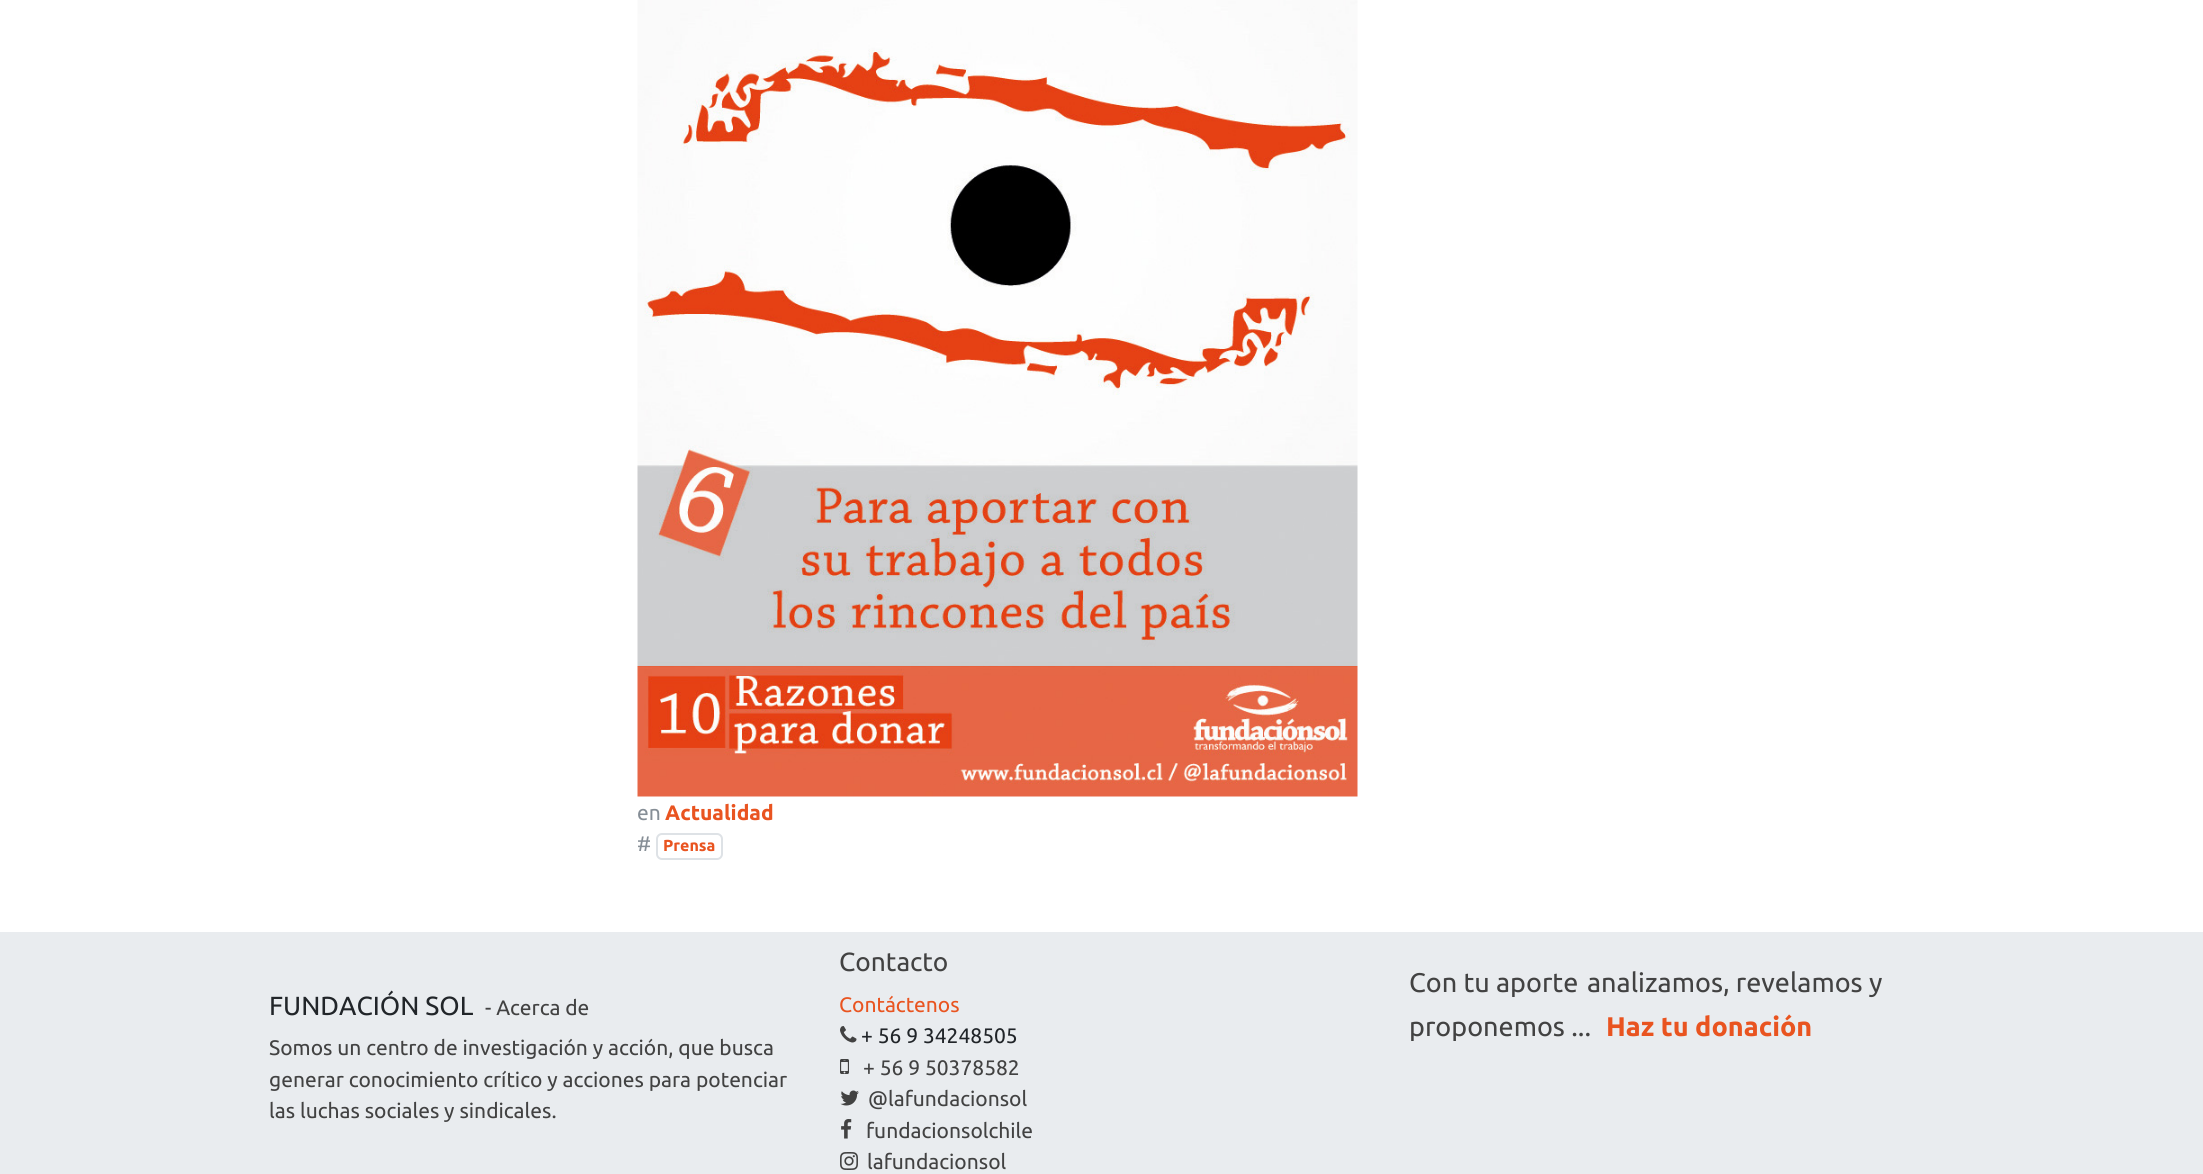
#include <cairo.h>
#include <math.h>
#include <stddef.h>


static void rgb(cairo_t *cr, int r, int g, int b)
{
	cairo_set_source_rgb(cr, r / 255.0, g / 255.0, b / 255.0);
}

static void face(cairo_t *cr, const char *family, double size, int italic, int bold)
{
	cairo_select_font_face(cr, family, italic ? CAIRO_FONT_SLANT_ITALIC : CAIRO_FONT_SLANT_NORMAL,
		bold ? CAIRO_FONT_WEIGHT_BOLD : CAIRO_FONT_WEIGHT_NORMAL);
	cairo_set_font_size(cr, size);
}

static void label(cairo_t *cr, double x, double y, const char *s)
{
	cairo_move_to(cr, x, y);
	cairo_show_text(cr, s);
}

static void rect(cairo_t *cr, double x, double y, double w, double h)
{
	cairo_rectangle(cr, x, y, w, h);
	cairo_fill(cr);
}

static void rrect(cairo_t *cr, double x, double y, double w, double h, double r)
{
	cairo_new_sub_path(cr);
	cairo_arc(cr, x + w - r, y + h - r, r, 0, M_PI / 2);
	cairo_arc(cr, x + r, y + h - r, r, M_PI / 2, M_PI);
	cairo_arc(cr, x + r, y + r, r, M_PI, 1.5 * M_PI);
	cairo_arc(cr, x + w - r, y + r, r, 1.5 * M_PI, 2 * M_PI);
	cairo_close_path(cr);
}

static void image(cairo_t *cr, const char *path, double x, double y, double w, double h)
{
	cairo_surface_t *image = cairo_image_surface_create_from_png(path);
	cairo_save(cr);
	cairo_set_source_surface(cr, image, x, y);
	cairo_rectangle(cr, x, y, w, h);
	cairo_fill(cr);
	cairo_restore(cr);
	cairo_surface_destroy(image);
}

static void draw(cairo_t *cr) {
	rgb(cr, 255, 255, 255);
	cairo_paint(cr);
	image(cr, "image0.png", 637, 0, 721, 797);
	face(cr, "Ubuntu", 21, 0, 0);
	rgb(cr, 134, 142, 150);
	label(cr, 637, 820, "en");
	face(cr, "Ubuntu", 21, 0, 1);
	rgb(cr, 233, 84, 32);
	label(cr, 665, 820, "Actualidad");
	face(cr, "Ubuntu", 21, 0, 0);
	rgb(cr, 134, 142, 150);
	label(cr, 637, 851, "#");
	rrect(cr, 657, 834, 65, 25, 5);
	rgb(cr, 222, 226, 230);
	cairo_stroke(cr);
	face(cr, "Ubuntu", 16, 0, 1);
	rgb(cr, 233, 84, 32);
	label(cr, 663, 851, "Prensa");
	rgb(cr, 233, 236, 239);
	rect(cr, 0, 932, 2203, 242);
	face(cr, "Ubuntu", 26.25, 0, 0);
	rgb(cr, 33, 37, 41);
	label(cr, 269, 1015, "FUNDACIÓN SOL");
	face(cr, "Ubuntu", 21, 0, 0);
	rgb(cr, 66, 66, 66);
	label(cr, 485, 1015, "- Acerca de");
	label(cr, 269, 1055, "Somos un centro de investigación y acción, que busca");
	label(cr, 269, 1087, "generar conocimiento crítico y acciones para potenciar");
	label(cr, 269, 1118, "las luchas sociales y sindicales.");
	face(cr, "Ubuntu", 26.25, 0, 0);
	label(cr, 839, 971, "Contacto");
	face(cr, "Ubuntu", 21, 0, 0);
	rgb(cr, 233, 84, 32);
	label(cr, 839, 1012, "Contáctenos");
	image(cr, "image1.png", 840, 1026, 17, 17);
	rgb(cr, 33, 37, 41);
	label(cr, 861, 1043, "+ 56 9 34248505");
	image(cr, "image2.png", 840, 1059, 9, 15);
	rgb(cr, 66, 66, 66);
	label(cr, 863, 1075, "+ 56 9 50378582");
	image(cr, "image3.png", 840, 1090, 19, 16);
	label(cr, 868, 1106, "@lafundacionsol");
	image(cr, "image4.png", 841, 1119, 11, 20);
	label(cr, 866, 1138, "fundacionsolchile");
	image(cr, "image5.png", 840, 1152, 18, 18);
	label(cr, 867, 1169, "lafundacionsol");
	face(cr, "Ubuntu", 27, 0, 0);
	label(cr, 1409, 992, "Con tu aporte");
	label(cr, 1587, 992, "analizamos, revelamos y");
	label(cr, 1409, 1036, "proponemos ...");
	face(cr, "Ubuntu", 27, 0, 1);
	rgb(cr, 233, 84, 32);
	label(cr, 1606, 1036, "Haz tu donación");
}

int main(void) {
	cairo_surface_t *surface = cairo_image_surface_create(CAIRO_FORMAT_RGB24, 2203, 1174);
	cairo_t *cr = cairo_create(surface);
	cairo_font_options_t *options = cairo_font_options_create();
	cairo_font_options_set_hint_metrics(options, CAIRO_HINT_METRICS_OFF);
	cairo_font_options_set_hint_style(options, CAIRO_HINT_STYLE_NONE);
	cairo_set_font_options(cr, options);
	cairo_set_miter_limit(cr, 4);
	draw(cr);
	cairo_surface_write_to_png(surface, "render.png");
	cairo_font_options_destroy(options);
	cairo_destroy(cr);
	cairo_surface_destroy(surface);
	return 0;
}
